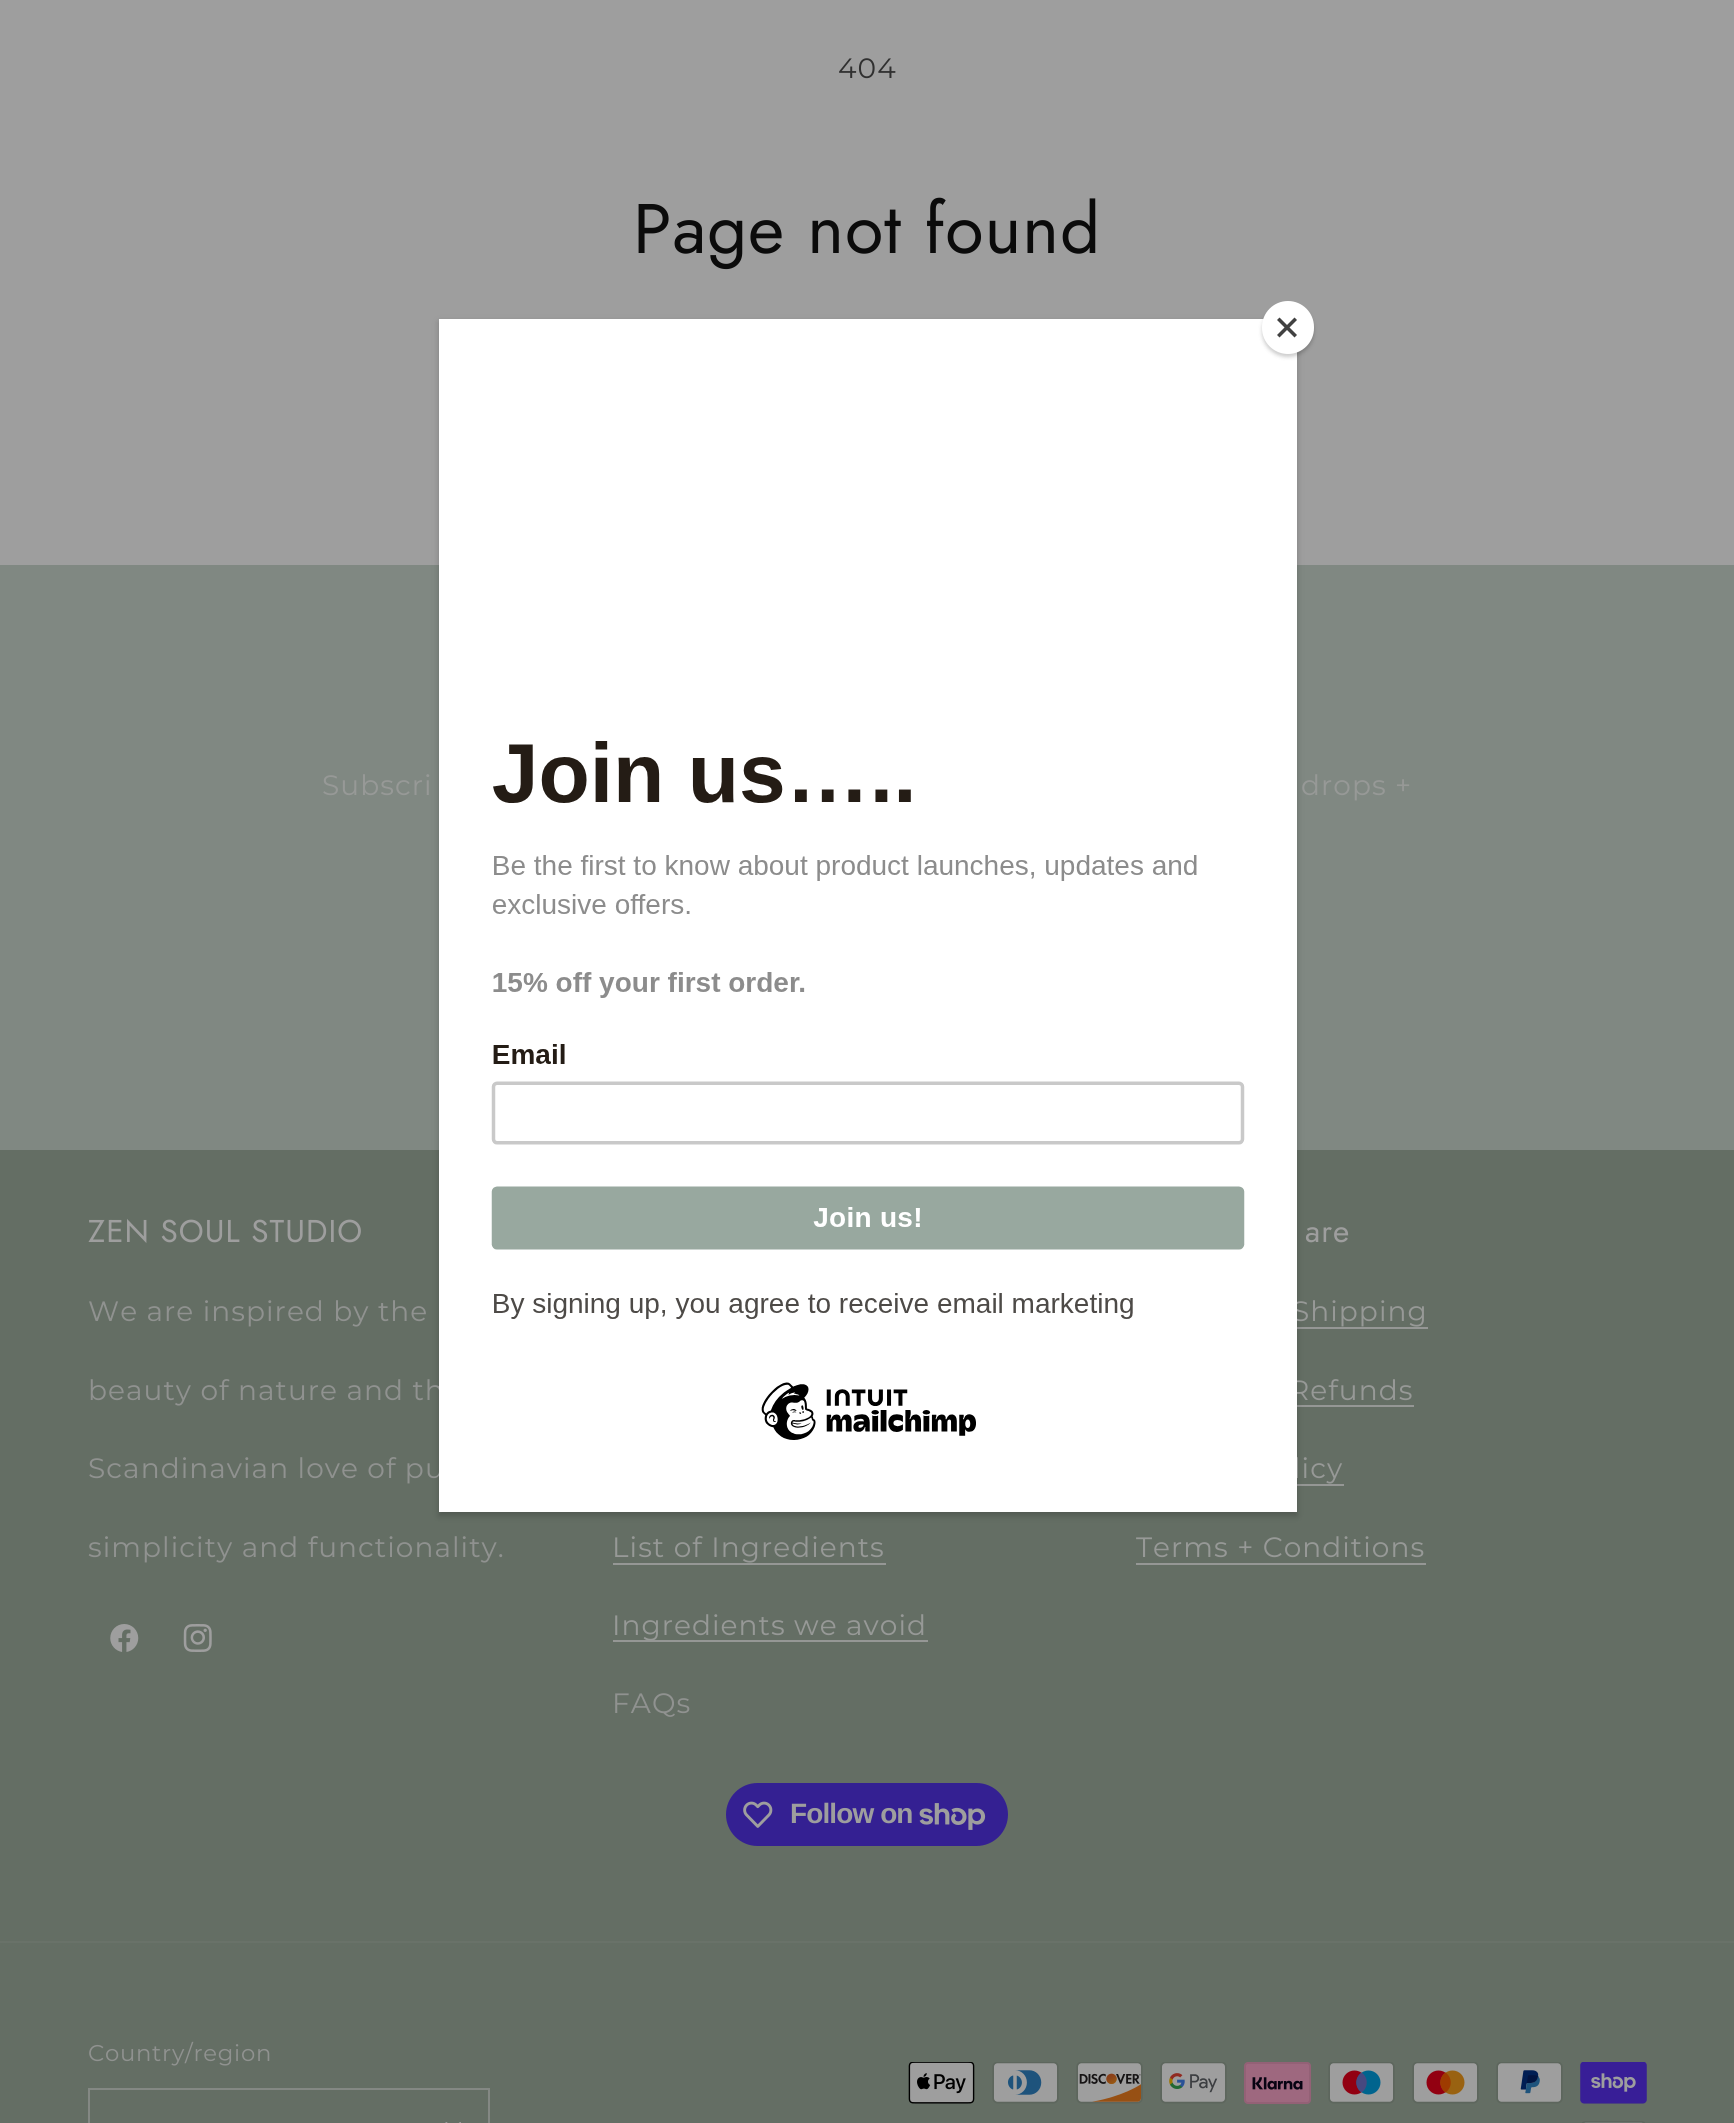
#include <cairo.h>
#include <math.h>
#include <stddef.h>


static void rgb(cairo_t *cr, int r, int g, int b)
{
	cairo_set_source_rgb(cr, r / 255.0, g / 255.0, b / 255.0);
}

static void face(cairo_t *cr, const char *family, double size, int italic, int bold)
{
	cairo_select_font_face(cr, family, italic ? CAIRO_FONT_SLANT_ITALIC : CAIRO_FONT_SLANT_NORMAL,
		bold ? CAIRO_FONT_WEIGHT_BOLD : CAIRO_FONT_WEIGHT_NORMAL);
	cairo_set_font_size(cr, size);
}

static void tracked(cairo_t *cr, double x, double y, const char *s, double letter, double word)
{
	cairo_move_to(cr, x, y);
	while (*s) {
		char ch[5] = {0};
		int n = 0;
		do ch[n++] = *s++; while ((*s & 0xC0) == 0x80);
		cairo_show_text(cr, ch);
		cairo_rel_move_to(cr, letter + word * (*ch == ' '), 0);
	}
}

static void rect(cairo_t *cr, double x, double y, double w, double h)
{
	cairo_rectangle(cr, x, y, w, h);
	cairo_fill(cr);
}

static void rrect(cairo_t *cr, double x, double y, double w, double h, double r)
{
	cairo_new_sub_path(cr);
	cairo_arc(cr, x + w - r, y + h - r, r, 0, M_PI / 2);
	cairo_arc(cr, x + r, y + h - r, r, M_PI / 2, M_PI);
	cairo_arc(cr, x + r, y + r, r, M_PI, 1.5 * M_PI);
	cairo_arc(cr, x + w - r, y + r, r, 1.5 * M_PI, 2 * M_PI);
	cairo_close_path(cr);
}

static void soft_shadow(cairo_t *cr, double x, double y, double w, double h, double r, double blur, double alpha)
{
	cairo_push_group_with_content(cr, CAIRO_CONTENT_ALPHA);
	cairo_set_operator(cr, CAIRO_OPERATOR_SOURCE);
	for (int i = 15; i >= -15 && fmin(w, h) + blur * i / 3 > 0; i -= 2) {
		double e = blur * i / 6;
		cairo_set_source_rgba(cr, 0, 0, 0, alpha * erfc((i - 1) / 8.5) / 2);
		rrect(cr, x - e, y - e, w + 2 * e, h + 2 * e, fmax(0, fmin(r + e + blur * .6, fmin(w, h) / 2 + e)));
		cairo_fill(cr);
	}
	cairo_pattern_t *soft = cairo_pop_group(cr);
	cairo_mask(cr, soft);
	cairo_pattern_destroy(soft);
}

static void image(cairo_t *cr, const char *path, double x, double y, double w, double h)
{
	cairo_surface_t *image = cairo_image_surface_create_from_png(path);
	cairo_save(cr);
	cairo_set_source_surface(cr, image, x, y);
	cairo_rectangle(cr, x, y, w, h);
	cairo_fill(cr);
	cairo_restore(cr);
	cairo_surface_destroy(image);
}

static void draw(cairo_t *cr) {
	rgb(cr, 158, 158, 158);
	cairo_paint(cr);
	face(cr, "Montserrat", 28, 0, 0);
	rgb(cr, 48, 48, 48);
	tracked(cr, 838, 78, "404", 1.05, 0);
	face(cr, "Jost", 70, 0, 0);
	rgb(cr, 11, 11, 11);
	tracked(cr, 633, 253, "Page not found", 1.05, 0);
	rgb(cr, 128, 136, 130);
	rect(cr, 0, 565, 1734, 585);
	rgb(cr, 100, 110, 100);
	rect(cr, 0, 1150, 1734, 973);
	rgb(cr, 149, 151, 149);
	rect(cr, 1297, 1327, 131, 2);
	rect(cr, 1297, 1405, 117, 2);
	rect(cr, 1297, 1484, 47, 2);
	rgb(cr, 0, 0, 0);
	soft_shadow(cr, 439, 322, 858, 1194, 0, 3.5, 0.2);
	face(cr, "Montserrat", 28, 0, 0);
	rgb(cr, 144, 146, 144);
	tracked(cr, 88, 1400, "beauty of nature and th", 1.05, 0);
	tracked(cr, 88, 1478, "Scandinavian love of pu", 1.05, 0);
	rgb(cr, 151, 153, 151);
	tracked(cr, 1292, 1321, "Shipping", 1.05, 0);
	tracked(cr, 1289, 1400, "Refunds", 1.05, 0);
	tracked(cr, 1293, 1478, "licy", 1.05, 0);
	image(cr, "image0.png", 439, 319, 858, 1193);
	rgb(cr, 0, 0, 0);
	soft_shadow(cr, 1262, 305, 52, 52, 26, 2, 0.2);
	rgb(cr, 255, 255, 255);
	rrect(cr, 1262, 301, 52, 53, 26);
	cairo_fill(cr);
	rgb(cr, 65, 65, 65);
	cairo_new_path(cr);
	cairo_move_to(cr, 1294.5, 317.5);
	cairo_line_to(cr, 1297, 320);
	cairo_line_to(cr, 1279.5, 337.5);
	cairo_line_to(cr, 1277, 335);
	cairo_close_path(cr);
	cairo_fill(cr);
	cairo_new_path(cr);
	cairo_move_to(cr, 1277, 320);
	cairo_line_to(cr, 1279.5, 317.5);
	cairo_line_to(cr, 1297, 335);
	cairo_line_to(cr, 1294.5, 337.5);
	cairo_close_path(cr);
	cairo_fill(cr);
	rgb(cr, 151, 153, 151);
	tracked(cr, 322, 795, "Subscri", 1.05, 0);
	tracked(cr, 1301, 795, "drops +", 1.05, 0);
	face(cr, "Jost", 31.5, 0, 0);
	rgb(cr, 158, 158, 158);
	tracked(cr, 88, 1242, "ZEN SOUL STUDIO", 1.05, 0);
	face(cr, "Montserrat", 28, 0, 0);
	rgb(cr, 144, 146, 144);
	tracked(cr, 88, 1321, "We are inspired by the", 1.05, 0);
	tracked(cr, 88, 1557, "simplicity and functionality.", 1.05, 0);
	image(cr, "image1.png", 110, 1624, 29, 28);
	image(cr, "image2.png", 183, 1624, 29, 28);
	face(cr, "Jost", 31.5, 0, 0);
	rgb(cr, 158, 158, 158);
	tracked(cr, 1305, 1242, "are", 1.05, 0);
	face(cr, "Montserrat", 28, 0, 0);
	rgb(cr, 151, 153, 151);
	tracked(cr, 1136, 1557, "Terms + Conditions", 1.05, 0);
	rgb(cr, 149, 151, 149);
	rect(cr, 1136, 1563, 290, 2);
	rgb(cr, 151, 153, 151);
	tracked(cr, 612, 1557, "List of Ingredients", 1.05, 0);
	rgb(cr, 149, 151, 149);
	rect(cr, 613, 1563, 273, 2);
	rect(cr, 613, 1640, 315, 2);
	rgb(cr, 151, 153, 151);
	tracked(cr, 612, 1635, "Ingredients we avoid", 1.05, 0);
	rgb(cr, 144, 146, 144);
	tracked(cr, 612, 1713, "FAQs", 1.05, 0);
	rgb(cr, 52, 32, 146);
	rrect(cr, 726, 1783, 282, 63, 31.5);
	cairo_fill(cr);
	image(cr, "image3.png", 743, 1801, 30, 27);
	face(cr, "Liberation Sans", 28, 0, 1);
	rgb(cr, 158, 158, 158);
	tracked(cr, 790, 1823, "Follow on", -0.9, 0);
	image(cr, "image4.png", 919, 1803, 67, 27);
	rgb(cr, 105, 114, 105);
	rect(cr, 0, 1941, 1734, 2);
	face(cr, "Montserrat", 22.75, 0, 0);
	rgb(cr, 144, 146, 144);
	tracked(cr, 88, 2061, "Country/region", 0.75, 0);
	image(cr, "image5.png", 445, 2122, 16, 1);
	cairo_rectangle(cr, 89, 2089, 400, 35);
	rgb(cr, 132, 136, 132);
	cairo_stroke(cr);
	image(cr, "image6.png", 908, 2062, 67, 42);
	image(cr, "image7.png", 992, 2062, 67, 42);
	image(cr, "image8.png", 1076, 2062, 67, 42);
	image(cr, "image9.png", 1160, 2062, 67, 42);
	image(cr, "image10.png", 1244, 2062, 67, 42);
	image(cr, "image11.png", 1328, 2062, 67, 42);
	image(cr, "image12.png", 1412, 2062, 67, 42);
	image(cr, "image13.png", 1496, 2062, 67, 42);
	image(cr, "image14.png", 1580, 2062, 67, 42);
	image(cr, "image15.png", 1582, 2121, 63, 2);
}

int main(void) {
	cairo_surface_t *surface = cairo_image_surface_create(CAIRO_FORMAT_RGB24, 1734, 2123);
	cairo_t *cr = cairo_create(surface);
	cairo_font_options_t *options = cairo_font_options_create();
	cairo_font_options_set_hint_metrics(options, CAIRO_HINT_METRICS_OFF);
	cairo_font_options_set_hint_style(options, CAIRO_HINT_STYLE_NONE);
	cairo_set_font_options(cr, options);
	cairo_set_miter_limit(cr, 4);
	draw(cr);
	cairo_surface_write_to_png(surface, "render.png");
	cairo_font_options_destroy(options);
	cairo_destroy(cr);
	cairo_surface_destroy(surface);
	return 0;
}
